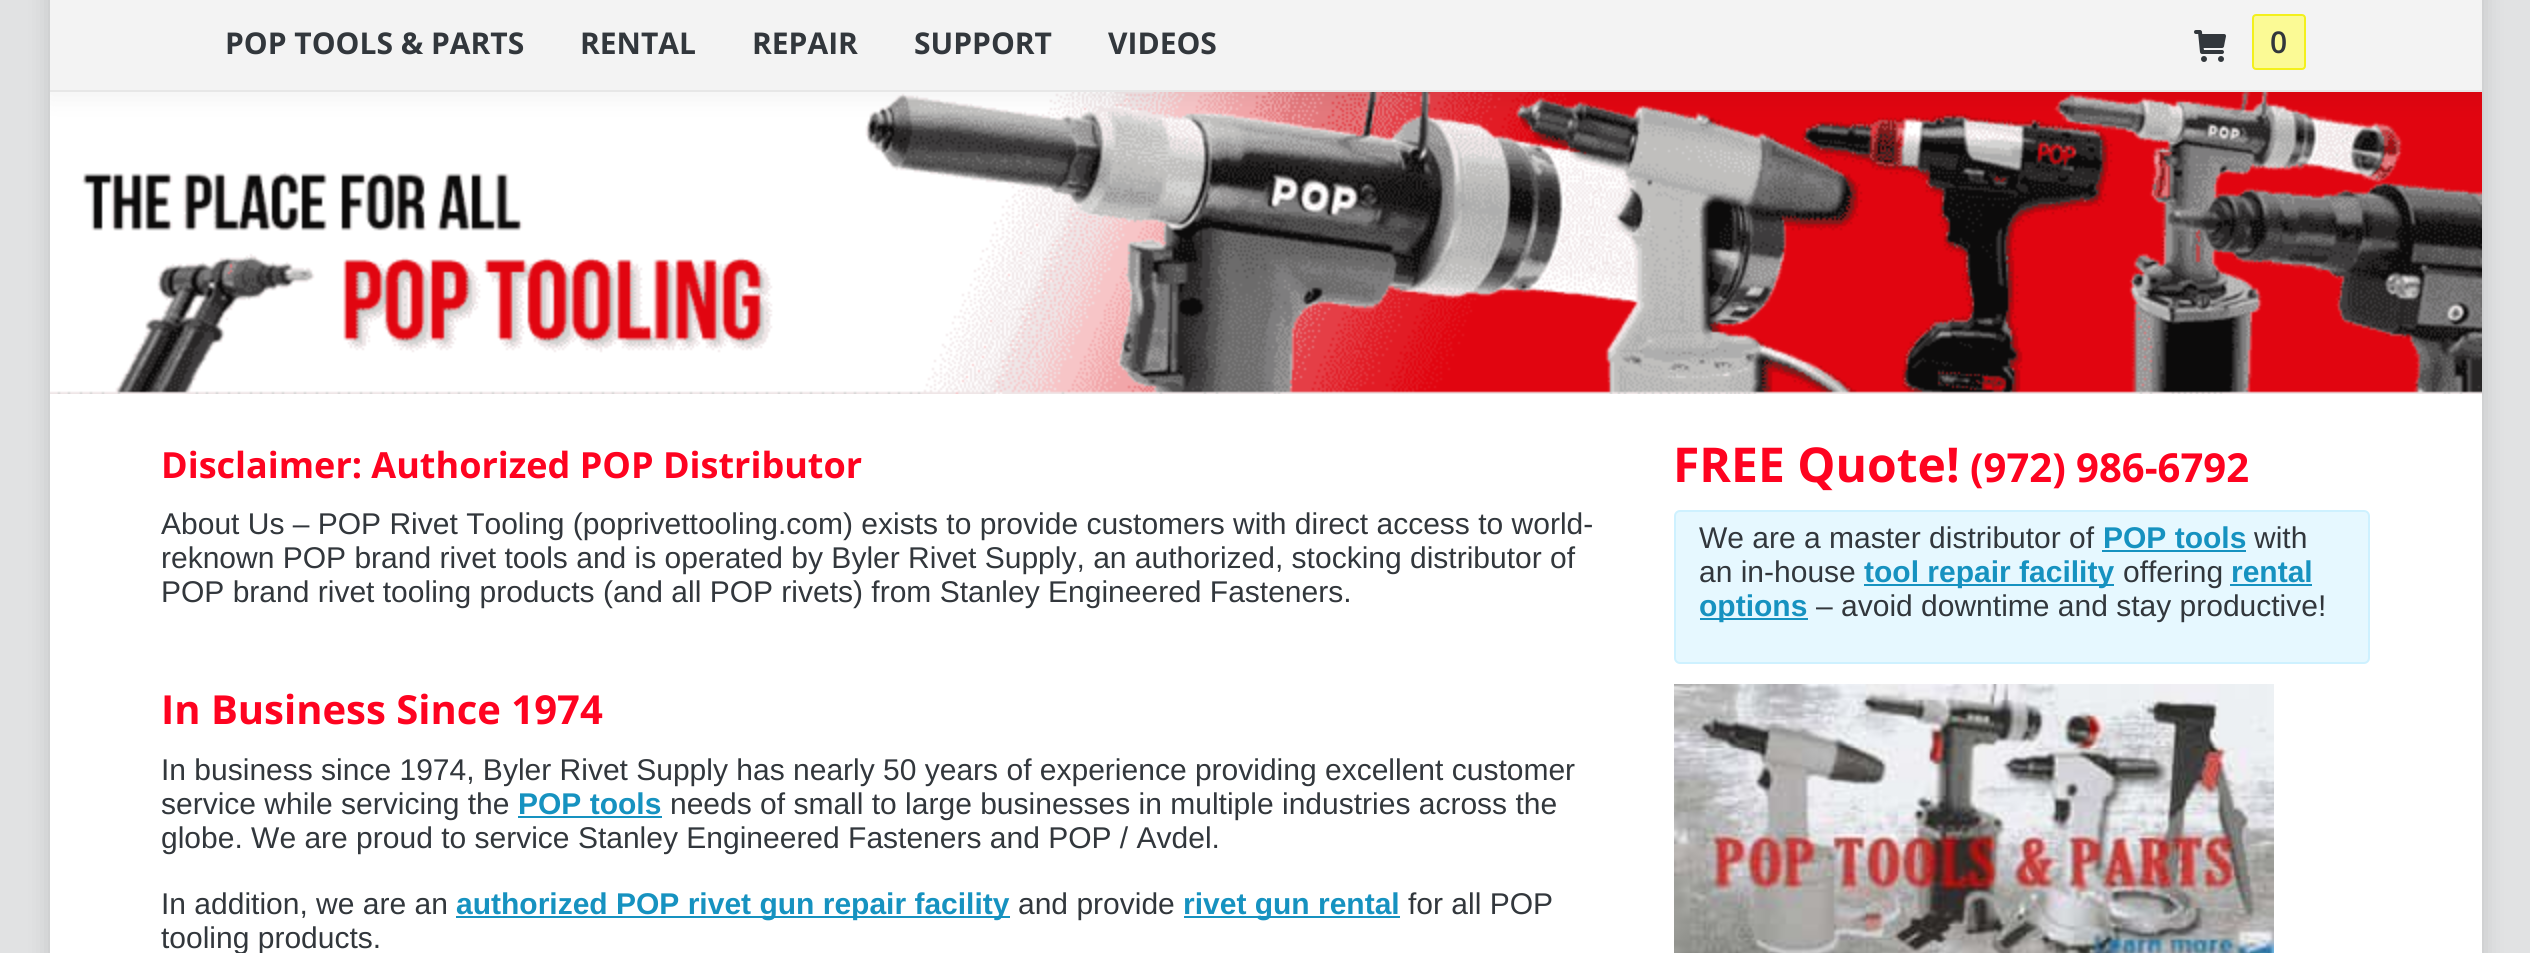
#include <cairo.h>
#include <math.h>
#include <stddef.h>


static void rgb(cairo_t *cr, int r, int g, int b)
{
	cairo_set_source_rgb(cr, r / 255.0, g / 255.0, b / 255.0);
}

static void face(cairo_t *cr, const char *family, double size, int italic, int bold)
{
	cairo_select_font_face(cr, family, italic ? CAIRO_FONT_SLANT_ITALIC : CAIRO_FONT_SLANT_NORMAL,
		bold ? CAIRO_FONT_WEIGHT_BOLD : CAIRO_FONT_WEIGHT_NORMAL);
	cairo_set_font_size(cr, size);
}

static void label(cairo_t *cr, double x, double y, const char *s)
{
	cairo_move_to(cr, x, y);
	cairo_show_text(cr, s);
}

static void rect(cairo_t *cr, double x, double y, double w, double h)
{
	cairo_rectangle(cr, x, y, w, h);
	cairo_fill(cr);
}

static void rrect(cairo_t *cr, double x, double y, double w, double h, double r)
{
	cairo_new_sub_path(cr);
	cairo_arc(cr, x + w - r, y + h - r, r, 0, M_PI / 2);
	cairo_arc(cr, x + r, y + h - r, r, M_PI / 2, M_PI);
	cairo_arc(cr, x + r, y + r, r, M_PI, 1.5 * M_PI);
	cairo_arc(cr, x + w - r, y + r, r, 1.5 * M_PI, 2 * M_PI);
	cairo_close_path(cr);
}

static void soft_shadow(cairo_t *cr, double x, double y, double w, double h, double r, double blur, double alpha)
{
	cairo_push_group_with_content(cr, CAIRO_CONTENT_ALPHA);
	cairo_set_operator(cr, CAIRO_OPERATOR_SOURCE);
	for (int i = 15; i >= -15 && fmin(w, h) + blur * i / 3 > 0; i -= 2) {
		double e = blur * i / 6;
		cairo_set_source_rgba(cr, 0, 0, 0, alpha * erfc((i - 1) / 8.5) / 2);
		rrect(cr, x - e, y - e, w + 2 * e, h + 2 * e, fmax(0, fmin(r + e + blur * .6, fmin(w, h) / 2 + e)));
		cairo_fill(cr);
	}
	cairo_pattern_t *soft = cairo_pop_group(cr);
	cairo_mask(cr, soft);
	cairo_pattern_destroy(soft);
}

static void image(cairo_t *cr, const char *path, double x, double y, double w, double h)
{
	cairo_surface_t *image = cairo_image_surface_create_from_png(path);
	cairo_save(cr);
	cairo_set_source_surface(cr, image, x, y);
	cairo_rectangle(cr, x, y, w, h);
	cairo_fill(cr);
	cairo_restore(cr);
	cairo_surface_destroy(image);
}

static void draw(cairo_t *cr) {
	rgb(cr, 225, 226, 227);
	cairo_paint(cr);
	rgb(cr, 0, 0, 0);
	soft_shadow(cr, 50, -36, 2432, 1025, 0, 12, 0.15);
	rgb(cr, 255, 255, 255);
	rect(cr, 50, 394, 2432, 559);
	image(cr, "image1.png", 50, 92, 2432, 302);
	cairo_save(cr);
	cairo_rectangle(cr, 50, 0, 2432, 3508);
	cairo_clip(cr);
	rgb(cr, 0, 0, 0);
	soft_shadow(cr, 48, -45, 2436, 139, 0, 15, 0.07);
	cairo_restore(cr);
	rgb(cr, 243, 243, 243);
	rect(cr, 50, 0, 2432, 90);
	rgb(cr, 231, 231, 231);
	rect(cr, 50, 90, 2432, 2);
	face(cr, "Open Sans", 30, 0, 1);
	rgb(cr, 50, 55, 60);
	label(cr, 225, 54, "POP TOOLS & PARTS");
	label(cr, 580, 54, "RENTAL");
	label(cr, 752, 54, "REPAIR");
	label(cr, 914, 54, "SUPPORT");
	label(cr, 1108, 54, "VIDEOS");
	image(cr, "image0.png", 2194, 30, 32, 32);
	rgb(cr, 251, 250, 149);
	rrect(cr, 2253, 15, 52, 54, 3);
	cairo_fill_preserve(cr);
	rgb(cr, 243, 240, 27);
	cairo_stroke(cr);
	face(cr, "Open Sans SemiBold", 30, 0, 0);
	rgb(cr, 50, 55, 60);
	label(cr, 2270, 53, "0");
	face(cr, "Open Sans", 36, 0, 1);
	rgb(cr, 254, 3, 32);
	label(cr, 161, 478, "Disclaimer: Authorized POP Distributor");
	face(cr, "Liberation Sans", 30, 0, 0);
	rgb(cr, 50, 55, 60);
	label(cr, 161, 534, "About Us – POP Rivet Tooling (poprivettooling.com) exists to provide customers with direct access to world-");
	label(cr, 161, 568, "reknown POP brand rivet tools and is operated by Byler Rivet Supply, an authorized, stocking distributor of");
	label(cr, 161, 602, "POP brand rivet tooling products (and all POP rivets) from Stanley Engineered Fasteners.");
	face(cr, "Open Sans", 40, 0, 1);
	rgb(cr, 254, 3, 32);
	label(cr, 161, 724, "In Business Since 1974");
	face(cr, "Liberation Sans", 30, 0, 0);
	rgb(cr, 50, 55, 60);
	label(cr, 161, 780, "In business since 1974, Byler Rivet Supply has nearly 50 years of experience providing excellent customer");
	label(cr, 161, 814, "service while servicing the");
	face(cr, "Liberation Sans", 30, 0, 1);
	rgb(cr, 22, 146, 192);
	label(cr, 518, 814, "POP tools");
	rect(cr, 518, 816, 144, 2);
	face(cr, "Liberation Sans", 30, 0, 0);
	rgb(cr, 50, 55, 60);
	label(cr, 670, 814, "needs of small to large businesses in multiple industries across the");
	label(cr, 161, 848, "globe. We are proud to service Stanley Engineered Fasteners and POP / Avdel.");
	label(cr, 161, 914, "In addition, we are an");
	rgb(cr, 22, 146, 192);
	rect(cr, 456, 916, 554, 2);
	face(cr, "Liberation Sans", 30, 0, 1);
	label(cr, 456, 914, "authorized POP rivet gun repair facility");
	face(cr, "Liberation Sans", 30, 0, 0);
	rgb(cr, 50, 55, 60);
	label(cr, 1018, 914, "and provide");
	rgb(cr, 22, 146, 192);
	rect(cr, 1184, 916, 216, 2);
	face(cr, "Liberation Sans", 30, 0, 1);
	label(cr, 1183, 914, "rivet gun rental");
	face(cr, "Liberation Sans", 30, 0, 0);
	rgb(cr, 50, 55, 60);
	label(cr, 1408, 914, "for all POP");
	label(cr, 161, 948, "tooling products.");
	face(cr, "Open Sans", 48, 0, 1);
	rgb(cr, 254, 3, 32);
	label(cr, 1673, 482, "FREE Quote!");
	face(cr, "Open Sans", 40, 0, 1);
	label(cr, 1970, 482, "(972) 986-6792");
	rgb(cr, 230, 248, 255);
	rrect(cr, 1675, 511, 694, 152, 5);
	cairo_fill_preserve(cr);
	rgb(cr, 206, 241, 255);
	cairo_stroke(cr);
	face(cr, "Liberation Sans", 30, 0, 0);
	rgb(cr, 50, 55, 60);
	label(cr, 1699, 548, "We are a master distributor of");
	face(cr, "Liberation Sans", 30, 0, 1);
	rgb(cr, 22, 146, 192);
	label(cr, 2103, 548, "POP tools");
	rect(cr, 2102, 550, 144, 2);
	face(cr, "Liberation Sans", 30, 0, 0);
	rgb(cr, 50, 55, 60);
	label(cr, 2254, 548, "with");
	label(cr, 1699, 582, "an in-house");
	rgb(cr, 22, 146, 192);
	rect(cr, 1864, 584, 250, 2);
	face(cr, "Liberation Sans", 30, 0, 1);
	label(cr, 1864, 582, "tool repair facility");
	face(cr, "Liberation Sans", 30, 0, 0);
	rgb(cr, 50, 55, 60);
	label(cr, 2123, 582, "offering");
	face(cr, "Liberation Sans", 30, 0, 1);
	rgb(cr, 22, 146, 192);
	label(cr, 2231, 582, "rental");
	rect(cr, 2230, 584, 82, 2);
	rect(cr, 1700, 618, 108, 2);
	label(cr, 1699, 616, "options");
	face(cr, "Liberation Sans", 30, 0, 0);
	rgb(cr, 50, 55, 60);
	label(cr, 1816, 616, "– avoid downtime and stay productive!");
	image(cr, "image2.png", 1674, 684, 600, 269);
}

int main(void) {
	cairo_surface_t *surface = cairo_image_surface_create(CAIRO_FORMAT_RGB24, 2530, 953);
	cairo_t *cr = cairo_create(surface);
	cairo_font_options_t *options = cairo_font_options_create();
	cairo_font_options_set_hint_metrics(options, CAIRO_HINT_METRICS_OFF);
	cairo_font_options_set_hint_style(options, CAIRO_HINT_STYLE_NONE);
	cairo_set_font_options(cr, options);
	cairo_set_miter_limit(cr, 4);
	draw(cr);
	cairo_surface_write_to_png(surface, "render.png");
	cairo_font_options_destroy(options);
	cairo_destroy(cr);
	cairo_surface_destroy(surface);
	return 0;
}
